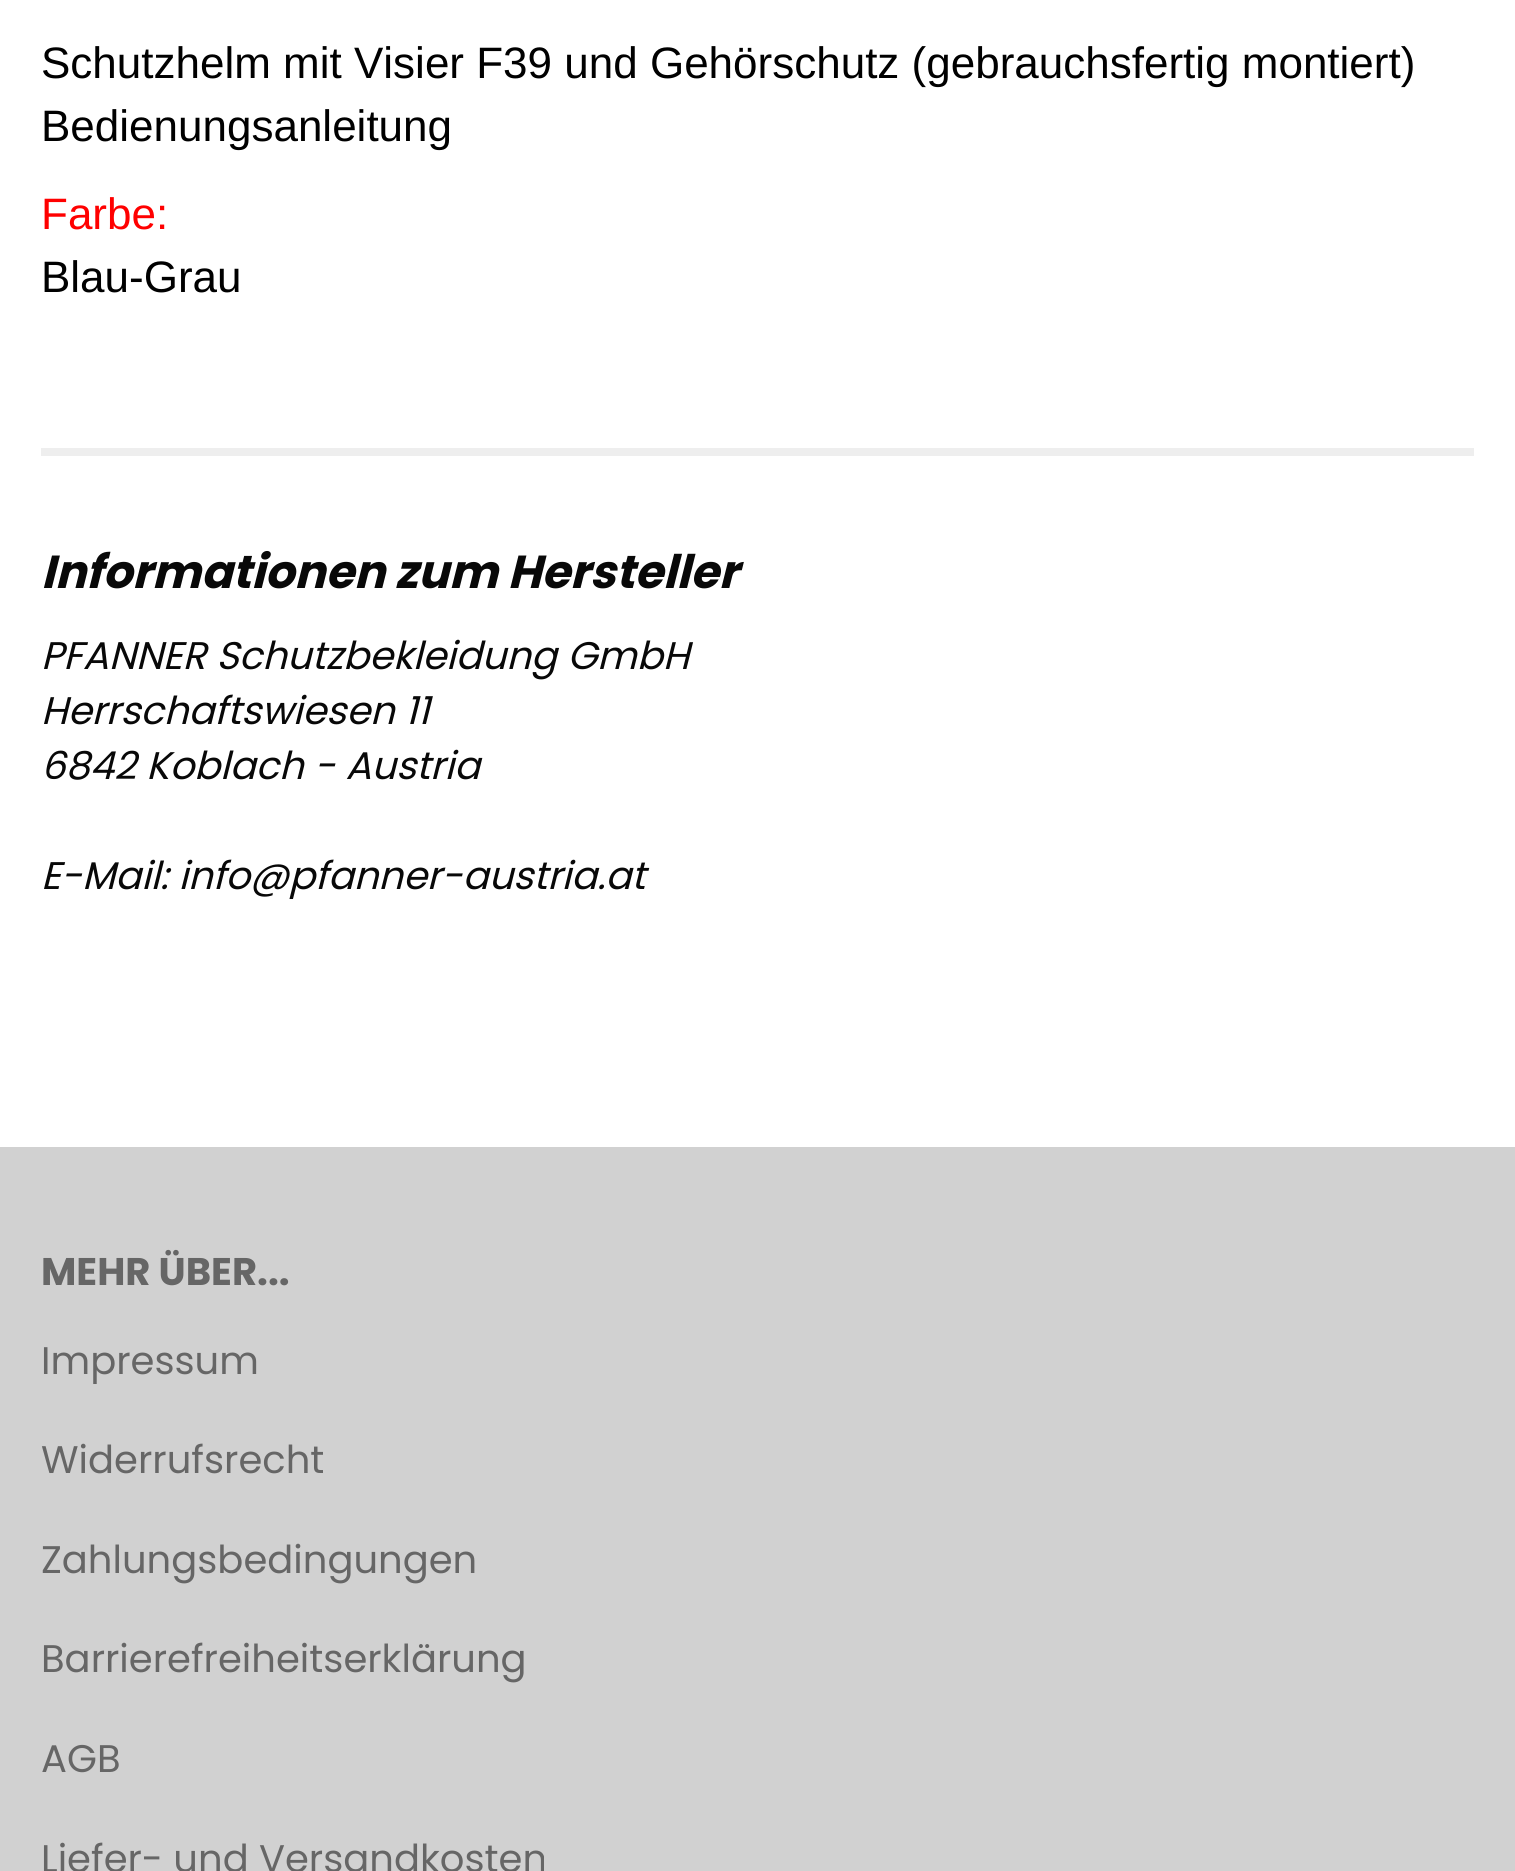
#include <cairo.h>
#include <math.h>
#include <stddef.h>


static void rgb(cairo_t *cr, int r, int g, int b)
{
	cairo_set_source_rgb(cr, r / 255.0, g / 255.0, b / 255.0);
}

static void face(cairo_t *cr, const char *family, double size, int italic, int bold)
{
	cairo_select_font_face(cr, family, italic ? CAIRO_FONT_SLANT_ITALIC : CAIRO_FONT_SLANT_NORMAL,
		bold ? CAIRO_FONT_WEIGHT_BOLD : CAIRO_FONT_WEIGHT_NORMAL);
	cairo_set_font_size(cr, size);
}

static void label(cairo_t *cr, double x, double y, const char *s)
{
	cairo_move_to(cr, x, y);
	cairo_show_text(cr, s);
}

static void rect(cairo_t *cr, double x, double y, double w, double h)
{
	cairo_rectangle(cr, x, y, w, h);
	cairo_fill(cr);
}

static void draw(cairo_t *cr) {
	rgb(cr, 255, 255, 255);
	cairo_paint(cr);
	rgb(cr, 238, 238, 238);
	rect(cr, 41, 448, 1433, 8);
	face(cr, "Liberation Sans", 44, 0, 0);
	rgb(cr, 0, 0, 0);
	label(cr, 41, 78, "Schutzhelm mit Visier F39 und Gehörschutz (gebrauchsfertig montiert)");
	label(cr, 41, 141, "Bedienungsanleitung");
	rgb(cr, 255, 0, 0);
	label(cr, 41, 229, "Farbe:");
	rgb(cr, 0, 0, 0);
	label(cr, 41, 292, "Blau-Grau");
	face(cr, "Poppins", 46.25, 1, 1);
	rgb(cr, 8, 8, 8);
	label(cr, 41, 588, "Informationen zum Hersteller");
	face(cr, "Poppins", 38.5, 1, 0);
	label(cr, 41, 669, "PFANNER Schutzbekleidung GmbH");
	label(cr, 41, 724, "Herrschaftswiesen 11");
	label(cr, 41, 779, "6842 Koblach - Austria");
	label(cr, 41, 889, "E-Mail: info@pfanner-austria.at");
	rgb(cr, 209, 209, 209);
	rect(cr, 0, 1147, 1515, 724);
	face(cr, "Poppins", 38.5, 0, 1);
	rgb(cr, 102, 102, 102);
	label(cr, 41, 1285, "MEHR ÜBER...");
	face(cr, "Poppins", 38.5, 0, 0);
	label(cr, 41, 1374, "Impressum");
	label(cr, 41, 1473, "Widerrufsrecht");
	label(cr, 41, 1573, "Zahlungsbedingungen");
	label(cr, 41, 1672, "Barrierefreiheitserklärung");
	label(cr, 41, 1772, "AGB");
	label(cr, 41, 1872, "Liefer- und Versandkosten");
}

int main(void) {
	cairo_surface_t *surface = cairo_image_surface_create(CAIRO_FORMAT_RGB24, 1515, 1871);
	cairo_t *cr = cairo_create(surface);
	cairo_font_options_t *options = cairo_font_options_create();
	cairo_font_options_set_hint_metrics(options, CAIRO_HINT_METRICS_OFF);
	cairo_font_options_set_hint_style(options, CAIRO_HINT_STYLE_NONE);
	cairo_set_font_options(cr, options);
	cairo_set_miter_limit(cr, 4);
	draw(cr);
	cairo_surface_write_to_png(surface, "render.png");
	cairo_font_options_destroy(options);
	cairo_destroy(cr);
	cairo_surface_destroy(surface);
	return 0;
}
